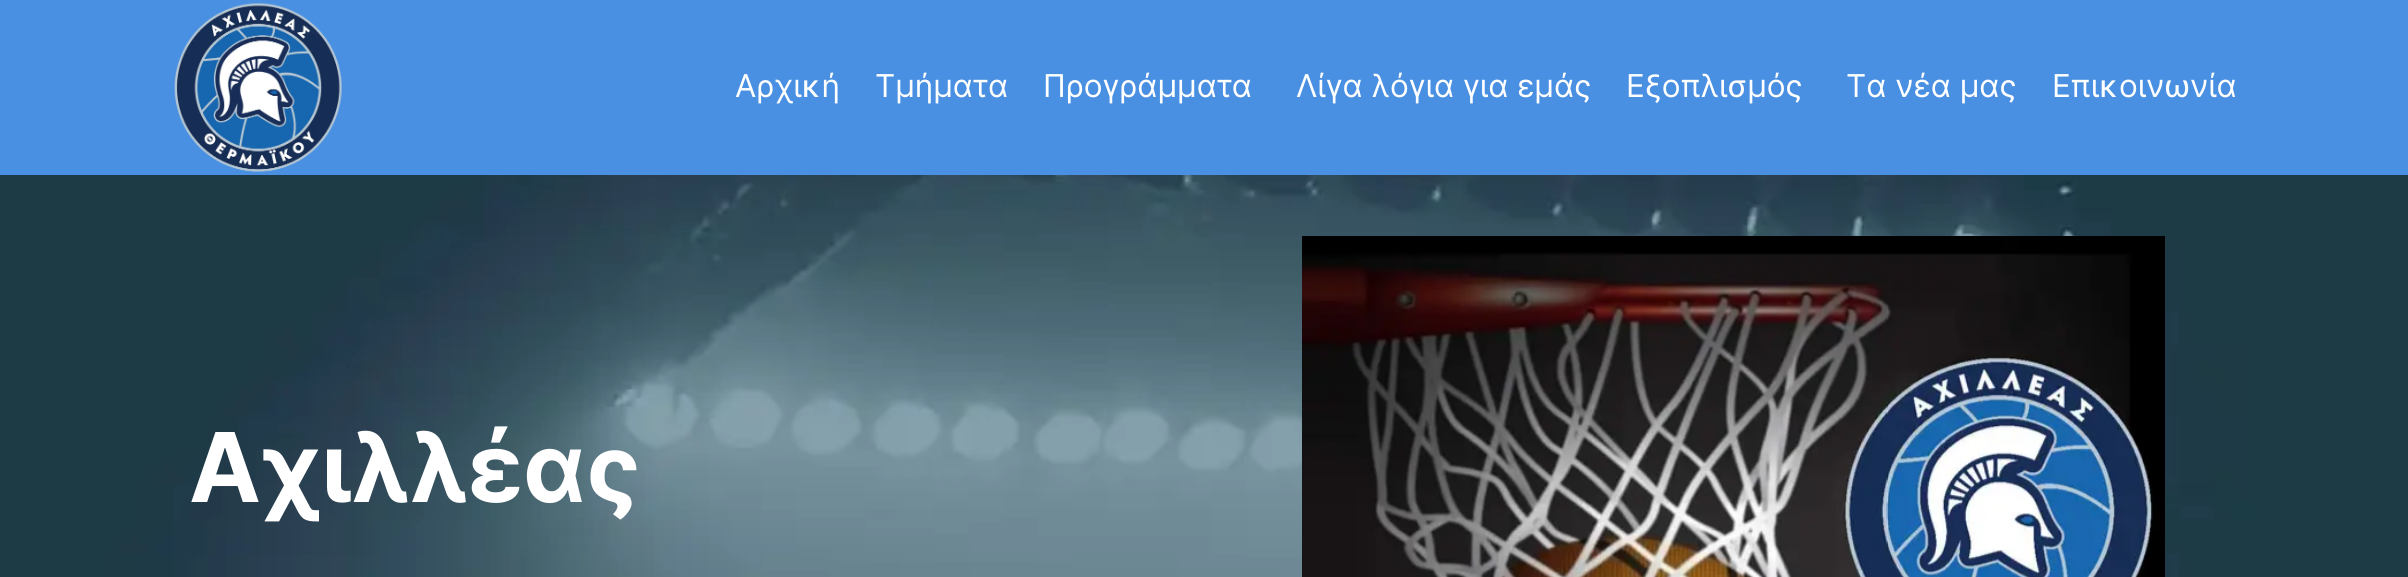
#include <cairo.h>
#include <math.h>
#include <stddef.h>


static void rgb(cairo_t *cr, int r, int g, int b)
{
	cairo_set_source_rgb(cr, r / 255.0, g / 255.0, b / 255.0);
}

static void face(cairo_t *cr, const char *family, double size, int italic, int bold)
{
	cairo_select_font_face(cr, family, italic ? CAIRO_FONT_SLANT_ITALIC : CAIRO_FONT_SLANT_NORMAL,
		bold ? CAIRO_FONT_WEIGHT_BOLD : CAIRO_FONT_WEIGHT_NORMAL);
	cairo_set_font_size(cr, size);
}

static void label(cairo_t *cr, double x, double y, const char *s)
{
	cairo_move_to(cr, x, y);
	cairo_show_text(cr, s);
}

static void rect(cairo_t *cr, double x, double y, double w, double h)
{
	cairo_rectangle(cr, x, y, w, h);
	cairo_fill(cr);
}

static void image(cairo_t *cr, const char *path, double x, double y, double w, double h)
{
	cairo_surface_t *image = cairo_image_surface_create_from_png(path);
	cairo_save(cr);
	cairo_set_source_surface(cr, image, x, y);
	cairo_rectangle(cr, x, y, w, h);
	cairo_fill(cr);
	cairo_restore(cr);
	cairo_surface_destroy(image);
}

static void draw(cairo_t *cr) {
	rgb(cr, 255, 255, 255);
	cairo_paint(cr);
	rgb(cr, 74, 144, 226);
	rect(cr, 0, 0, 2408, 175);
	image(cr, "image0.png", 174, 3, 168, 169);
	face(cr, "Inter", 31.5, 0, 0);
	rgb(cr, 255, 255, 255);
	label(cr, 735, 97, "Αρχική");
	label(cr, 875, 97, "Τμήματα");
	label(cr, 1043, 97, "Προγράμματα");
	label(cr, 1296, 97, "Λίγα λόγια για εμάς");
	label(cr, 1626, 97, "Εξοπλισμός");
	label(cr, 1846, 97, "Τα νέα μας");
	label(cr, 2052, 97, "Επικοινωνία");
	image(cr, "image1.png", 0, 175, 2408, 402);
	face(cr, "Inter", 96.25, 0, 1);
	label(cr, 189, 502, "Αχιλλέας");
	image(cr, "image2.png", 1302, 236, 863, 341);
}

int main(void) {
	cairo_surface_t *surface = cairo_image_surface_create(CAIRO_FORMAT_RGB24, 2408, 577);
	cairo_t *cr = cairo_create(surface);
	cairo_font_options_t *options = cairo_font_options_create();
	cairo_font_options_set_hint_metrics(options, CAIRO_HINT_METRICS_OFF);
	cairo_font_options_set_hint_style(options, CAIRO_HINT_STYLE_NONE);
	cairo_set_font_options(cr, options);
	cairo_set_miter_limit(cr, 4);
	draw(cr);
	cairo_surface_write_to_png(surface, "render.png");
	cairo_font_options_destroy(options);
	cairo_destroy(cr);
	cairo_surface_destroy(surface);
	return 0;
}
